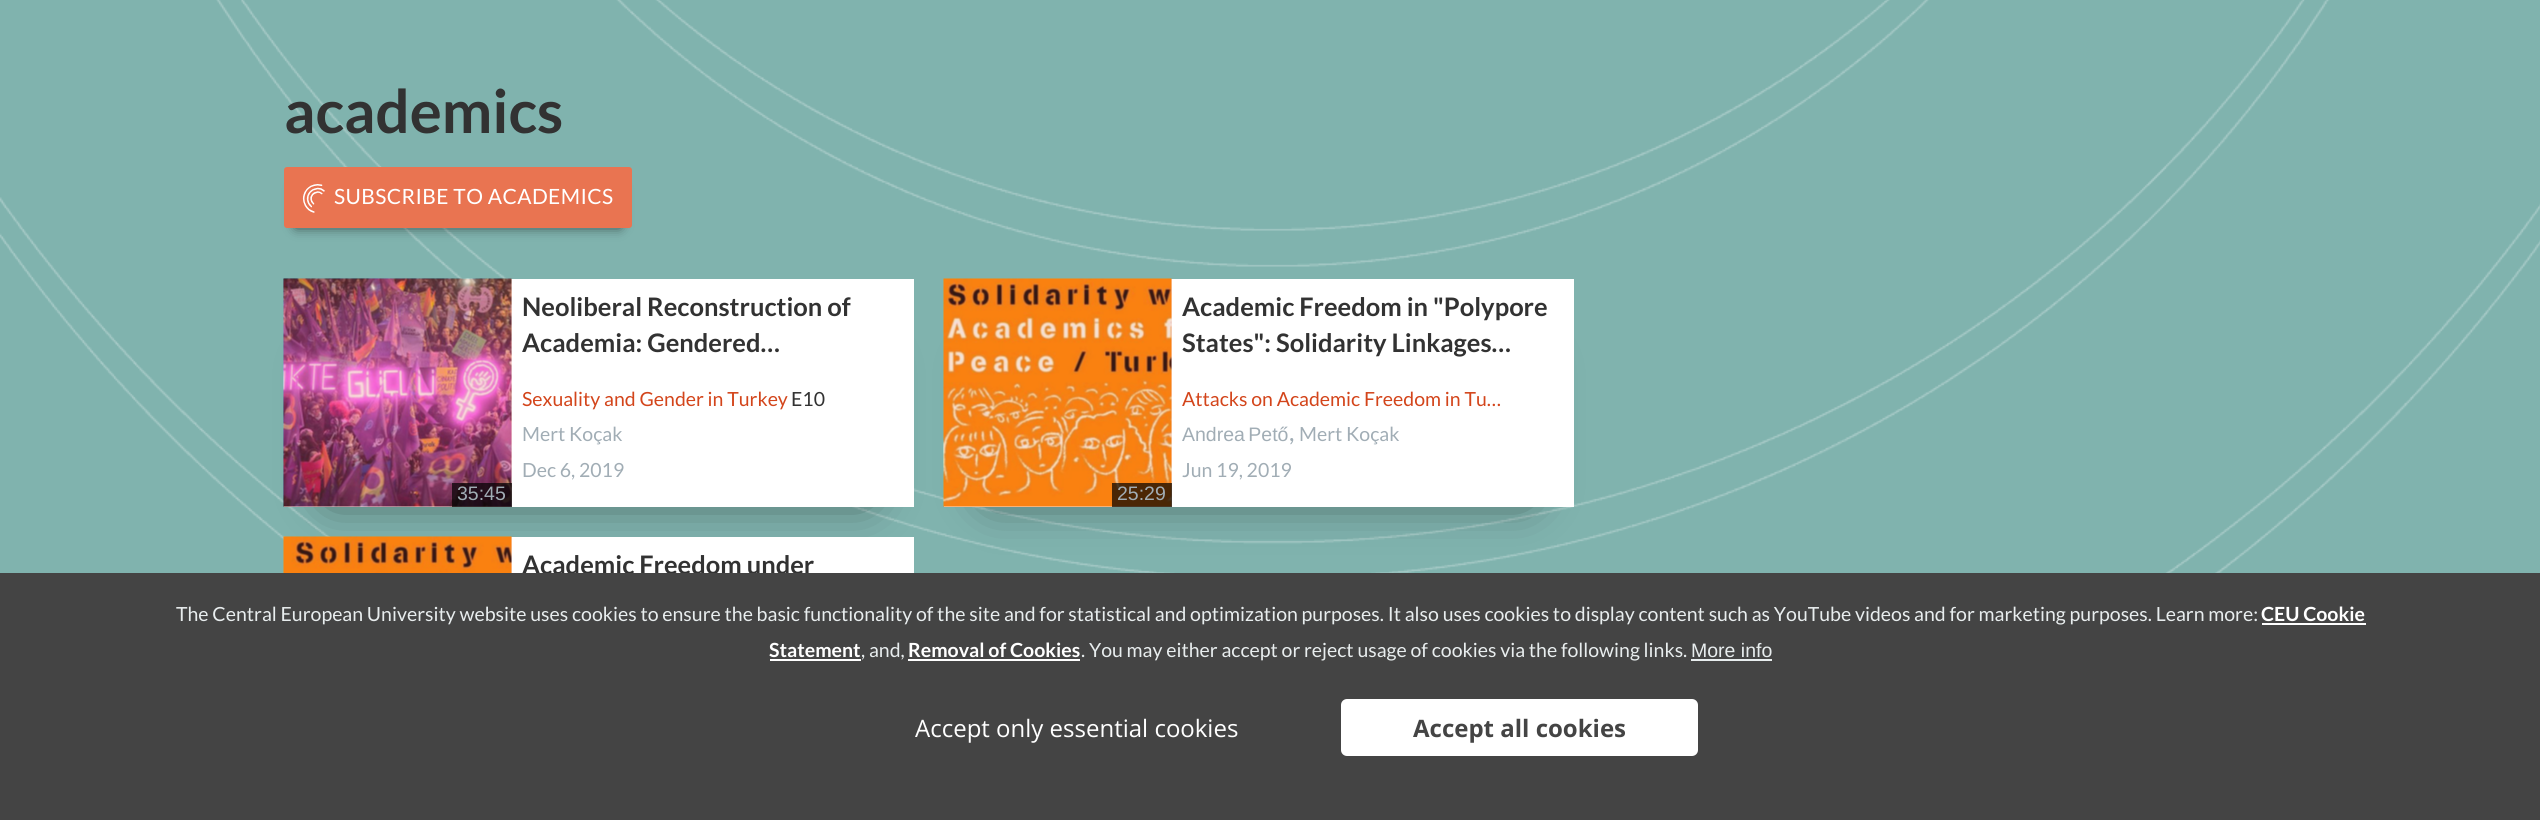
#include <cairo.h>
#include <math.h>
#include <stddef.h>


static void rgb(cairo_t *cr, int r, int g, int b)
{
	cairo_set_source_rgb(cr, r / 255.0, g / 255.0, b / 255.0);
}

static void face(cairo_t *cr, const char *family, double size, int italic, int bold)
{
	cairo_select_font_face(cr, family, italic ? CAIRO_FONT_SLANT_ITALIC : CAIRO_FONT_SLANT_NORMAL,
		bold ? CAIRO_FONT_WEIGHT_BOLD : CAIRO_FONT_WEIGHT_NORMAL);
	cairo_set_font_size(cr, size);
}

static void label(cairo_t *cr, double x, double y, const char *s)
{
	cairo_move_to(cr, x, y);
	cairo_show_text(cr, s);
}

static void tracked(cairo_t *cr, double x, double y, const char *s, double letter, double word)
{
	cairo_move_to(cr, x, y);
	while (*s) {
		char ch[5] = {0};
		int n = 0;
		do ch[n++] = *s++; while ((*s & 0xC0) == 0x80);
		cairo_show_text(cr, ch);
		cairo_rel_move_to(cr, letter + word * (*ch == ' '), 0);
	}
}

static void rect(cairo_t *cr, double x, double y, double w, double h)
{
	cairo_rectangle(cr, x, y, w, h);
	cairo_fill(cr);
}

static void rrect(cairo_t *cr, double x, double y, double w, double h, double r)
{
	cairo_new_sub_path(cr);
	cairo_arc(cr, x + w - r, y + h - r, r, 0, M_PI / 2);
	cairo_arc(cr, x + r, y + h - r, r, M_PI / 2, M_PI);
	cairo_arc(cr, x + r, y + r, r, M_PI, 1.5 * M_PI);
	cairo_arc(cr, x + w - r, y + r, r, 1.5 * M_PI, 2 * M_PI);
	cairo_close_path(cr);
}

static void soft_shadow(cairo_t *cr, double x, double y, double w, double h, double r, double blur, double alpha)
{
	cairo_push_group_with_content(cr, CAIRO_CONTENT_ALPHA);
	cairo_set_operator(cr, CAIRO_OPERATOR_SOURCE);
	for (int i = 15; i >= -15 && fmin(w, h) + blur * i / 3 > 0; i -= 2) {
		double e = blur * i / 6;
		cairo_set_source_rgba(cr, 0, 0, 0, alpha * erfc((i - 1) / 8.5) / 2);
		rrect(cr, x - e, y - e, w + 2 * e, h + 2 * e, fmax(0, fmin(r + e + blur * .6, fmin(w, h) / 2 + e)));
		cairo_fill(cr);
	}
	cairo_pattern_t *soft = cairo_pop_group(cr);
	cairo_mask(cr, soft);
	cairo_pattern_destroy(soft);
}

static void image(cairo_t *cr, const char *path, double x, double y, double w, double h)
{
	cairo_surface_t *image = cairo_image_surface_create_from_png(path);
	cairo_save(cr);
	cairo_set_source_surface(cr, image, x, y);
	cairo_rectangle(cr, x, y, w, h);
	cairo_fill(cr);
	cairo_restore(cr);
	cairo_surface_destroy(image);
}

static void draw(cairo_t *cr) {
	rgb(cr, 255, 255, 255);
	cairo_paint(cr);
	image(cr, "image0.png", 0, 0, 2540, 573);
	face(cr, "Lato", 60, 0, 1);
	rgb(cr, 50, 50, 50);
	label(cr, 284, 133, "academics");
	rgb(cr, 0, 0, 0);
	soft_shadow(cr, 296, 189, 324, 38, 0, 6, 0.66);
	rgb(cr, 233, 116, 81);
	rrect(cr, 284, 167, 348, 61, 3);
	cairo_fill(cr);
	image(cr, "image1.png", 302, 184, 23, 29);
	face(cr, "Lato", 21, 0, 0);
	rgb(cr, 255, 255, 255);
	tracked(cr, 334, 204, "SUBSCRIBE TO ACADEMICS", 0.4, 0);
	rgb(cr, 0, 0, 0);
	soft_shadow(cr, 332, 363, 534, 132, 0, 24, 0.66);
	rgb(cr, 255, 255, 255);
	rect(cr, 284, 279, 630, 228);
	face(cr, "Lato", 25.5, 0, 1);
	rgb(cr, 50, 50, 50);
	label(cr, 522, 316, "Neoliberal Reconstruction of");
	label(cr, 522, 352, "Academia: Gendered…");
	face(cr, "Lato", 19.5, 0, 0);
	rgb(cr, 211, 69, 27);
	label(cr, 522, 406, "Sexuality and Gender in Turkey");
	rgb(cr, 50, 50, 50);
	label(cr, 791, 406, "E10");
	rgb(cr, 161, 173, 181);
	label(cr, 522, 441, "Mert Koçak");
	label(cr, 522, 477, "Dec 6, 2019");
	image(cr, "image2.png", 283, 278, 229, 229);
	cairo_set_source_rgba(cr, 0.914, 0.455, 0.318, 0.2);
	rect(cr, 284, 279, 228, 228);
	cairo_set_source_rgba(cr, 0, 0, 0, 0.7);
	rect(cr, 452, 483, 60, 24);
	face(cr, "Liberation Sans", 19.5, 0, 0);
	rgb(cr, 161, 173, 181);
	label(cr, 457, 500, "35:45");
	rgb(cr, 0, 0, 0);
	soft_shadow(cr, 992, 363, 534, 132, 0, 24, 0.66);
	rgb(cr, 255, 255, 255);
	rect(cr, 944, 279, 630, 228);
	face(cr, "Lato", 25.5, 0, 1);
	rgb(cr, 50, 50, 50);
	label(cr, 1182, 316, "Academic Freedom in \"Polypore");
	label(cr, 1182, 352, "States\": Solidarity Linkages…");
	face(cr, "Lato", 19.5, 0, 0);
	rgb(cr, 211, 69, 27);
	label(cr, 1182, 406, "Attacks on Academic Freedom in Tu…");
	face(cr, "Liberation Sans", 19.5, 0, 0);
	rgb(cr, 161, 173, 181);
	tracked(cr, 1182, 441, "Andrea Pető", 0, -2);
	face(cr, "Lato", 25.5, 0, 0);
	label(cr, 1289, 441, ",");
	face(cr, "Lato", 19.5, 0, 0);
	label(cr, 1299, 441, "Mert Koçak");
	label(cr, 1182, 477, "Jun 19, 2019");
	image(cr, "image3.png", 943, 278, 229, 229);
	cairo_set_source_rgba(cr, 0.914, 0.455, 0.318, 0.2);
	rect(cr, 944, 279, 228, 228);
	cairo_set_source_rgba(cr, 0, 0, 0, 0.7);
	rect(cr, 1112, 483, 60, 24);
	face(cr, "Liberation Sans", 19.5, 0, 0);
	rgb(cr, 161, 173, 181);
	label(cr, 1117, 500, "25:29");
	rgb(cr, 255, 255, 255);
	rect(cr, 511, 537, 403, 36);
	image(cr, "image4.png", 283, 536, 229, 37);
	cairo_set_source_rgba(cr, 0.914, 0.455, 0.318, 0.2);
	rect(cr, 284, 537, 228, 36);
	face(cr, "Lato", 25.5, 0, 1);
	rgb(cr, 50, 50, 50);
	label(cr, 522, 574, "Academic Freedom under");
	rgb(cr, 68, 68, 68);
	rect(cr, 0, 573, 2540, 247);
	face(cr, "Lato", 19.5, 0, 0);
	rgb(cr, 232, 237, 238);
	label(cr, 176, 621, "The Central European University website uses cookies to ensure the basic functionality of the site and for statistical and optimization purposes. It also uses cookies to display content such as YouTube videos and for marketing purposes. Learn more:");
	face(cr, "Lato", 19.5, 0, 1);
	rgb(cr, 255, 255, 255);
	label(cr, 2261, 621, "CEU Cookie");
	rect(cr, 2262, 623, 104, 2);
	label(cr, 769, 657, "Statement");
	face(cr, "Lato", 19.5, 0, 0);
	rgb(cr, 232, 237, 238);
	label(cr, 861, 657, ", and,");
	rgb(cr, 255, 255, 255);
	rect(cr, 770, 659, 91, 2);
	face(cr, "Lato", 19.5, 0, 1);
	label(cr, 908, 657, "Removal of Cookies");
	face(cr, "Lato", 19.5, 0, 0);
	rgb(cr, 232, 237, 238);
	label(cr, 1081, 657, ". You may either accept or reject usage of cookies via the following links.");
	rgb(cr, 255, 255, 255);
	rect(cr, 908, 659, 172, 2);
	face(cr, "Liberation Sans", 19.5, 0, 0);
	rgb(cr, 232, 237, 238);
	label(cr, 1691, 657, "More info");
	rect(cr, 1691, 659, 81, 2);
	face(cr, "Open Sans", 24, 0, 0);
	rgb(cr, 255, 255, 255);
	label(cr, 915, 737, "Accept only essential cookies");
	rrect(cr, 1341, 699, 357, 57, 6);
	cairo_fill(cr);
	face(cr, "Open Sans", 24, 0, 1);
	rgb(cr, 68, 68, 68);
	label(cr, 1413, 737, "Accept all cookies");
}

int main(void) {
	cairo_surface_t *surface = cairo_image_surface_create(CAIRO_FORMAT_RGB24, 2540, 820);
	cairo_t *cr = cairo_create(surface);
	cairo_font_options_t *options = cairo_font_options_create();
	cairo_font_options_set_hint_metrics(options, CAIRO_HINT_METRICS_OFF);
	cairo_font_options_set_hint_style(options, CAIRO_HINT_STYLE_NONE);
	cairo_set_font_options(cr, options);
	cairo_set_miter_limit(cr, 4);
	draw(cr);
	cairo_surface_write_to_png(surface, "render.png");
	cairo_font_options_destroy(options);
	cairo_destroy(cr);
	cairo_surface_destroy(surface);
	return 0;
}
